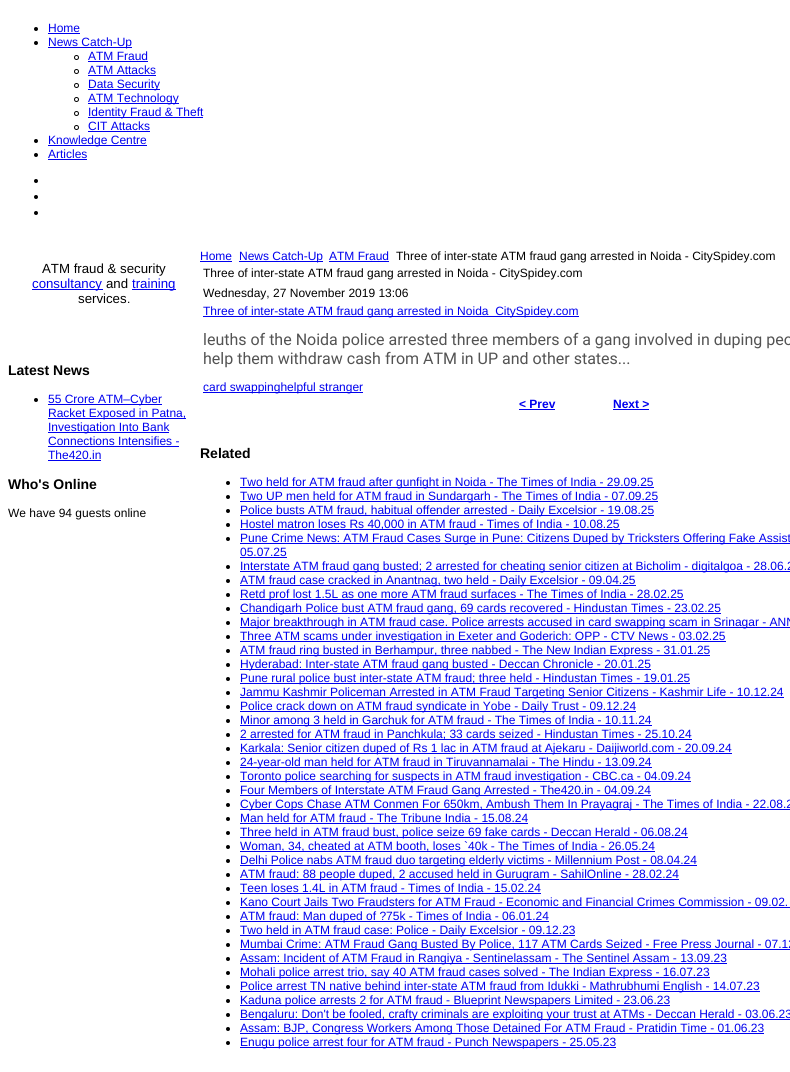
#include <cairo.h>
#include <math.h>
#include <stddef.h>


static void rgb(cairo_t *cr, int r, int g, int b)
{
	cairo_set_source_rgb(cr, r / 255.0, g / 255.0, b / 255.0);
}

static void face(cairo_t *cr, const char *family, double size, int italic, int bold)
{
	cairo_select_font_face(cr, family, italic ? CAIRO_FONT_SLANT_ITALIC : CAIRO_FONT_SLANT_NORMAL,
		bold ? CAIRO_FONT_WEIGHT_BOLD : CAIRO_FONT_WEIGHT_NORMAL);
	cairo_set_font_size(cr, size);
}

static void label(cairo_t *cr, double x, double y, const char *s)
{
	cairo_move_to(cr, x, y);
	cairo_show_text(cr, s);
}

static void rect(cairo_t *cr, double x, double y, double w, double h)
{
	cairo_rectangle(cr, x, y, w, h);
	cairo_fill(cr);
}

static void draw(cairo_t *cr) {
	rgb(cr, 255, 255, 255);
	cairo_paint(cr);
	rgb(cr, 0, 0, 0);
	cairo_arc(cr, 36, 29, 2, 0, 2 * M_PI);
	cairo_fill(cr);
	face(cr, "Liberation Sans", 12, 0, 0);
	rgb(cr, 0, 0, 238);
	label(cr, 48, 32, "Home");
	rect(cr, 48, 33, 32, 1);
	rgb(cr, 0, 0, 0);
	cairo_new_path(cr);
	cairo_arc(cr, 36, 43, 2, 0, 2 * M_PI);
	cairo_fill(cr);
	rgb(cr, 0, 0, 238);
	rect(cr, 48, 47, 84, 1);
	label(cr, 48, 46, "News Catch-Up");
	cairo_new_path(cr);
	cairo_arc(cr, 76.5, 57.5, 2, 0, 2 * M_PI);
	rgb(cr, 0, 0, 0);
	cairo_set_line_width(cr, 1);
	cairo_stroke(cr);
	rgb(cr, 0, 0, 238);
	label(cr, 88, 60, "ATM Fraud");
	rect(cr, 88, 61, 60, 1);
	cairo_new_path(cr);
	cairo_arc(cr, 76.5, 71.5, 2, 0, 2 * M_PI);
	rgb(cr, 0, 0, 0);
	cairo_stroke(cr);
	rgb(cr, 0, 0, 238);
	label(cr, 88, 74, "ATM Attacks");
	rect(cr, 88, 75, 68, 1);
	cairo_new_path(cr);
	cairo_arc(cr, 76.5, 85.5, 2, 0, 2 * M_PI);
	rgb(cr, 0, 0, 0);
	cairo_stroke(cr);
	rgb(cr, 0, 0, 238);
	rect(cr, 88, 89, 72, 1);
	label(cr, 88, 88, "Data Security");
	cairo_new_path(cr);
	cairo_arc(cr, 76.5, 99.5, 2, 0, 2 * M_PI);
	rgb(cr, 0, 0, 0);
	cairo_stroke(cr);
	rgb(cr, 0, 0, 238);
	rect(cr, 88, 103, 91, 1);
	label(cr, 88, 102, "ATM Technology");
	cairo_new_path(cr);
	cairo_arc(cr, 76.5, 113.5, 2, 0, 2 * M_PI);
	rgb(cr, 0, 0, 0);
	cairo_stroke(cr);
	rgb(cr, 0, 0, 238);
	rect(cr, 88, 117, 115, 1);
	label(cr, 88, 116, "Identity Fraud & Theft");
	cairo_new_path(cr);
	cairo_arc(cr, 76.5, 127.5, 2, 0, 2 * M_PI);
	rgb(cr, 0, 0, 0);
	cairo_stroke(cr);
	rgb(cr, 0, 0, 238);
	label(cr, 88, 130, "CIT Attacks");
	rect(cr, 88, 131, 62, 1);
	rgb(cr, 0, 0, 0);
	cairo_new_path(cr);
	cairo_arc(cr, 36, 141, 2, 0, 2 * M_PI);
	cairo_fill(cr);
	rgb(cr, 0, 0, 238);
	rect(cr, 48, 145, 99, 1);
	label(cr, 48, 144, "Knowledge Centre");
	rgb(cr, 0, 0, 0);
	cairo_new_path(cr);
	cairo_arc(cr, 36, 155, 2, 0, 2 * M_PI);
	cairo_fill(cr);
	rgb(cr, 0, 0, 238);
	label(cr, 48, 158, "Articles");
	rect(cr, 48, 159, 39, 1);
	rgb(cr, 0, 0, 0);
	cairo_new_path(cr);
	cairo_arc(cr, 36, 181, 2, 0, 2 * M_PI);
	cairo_fill(cr);
	cairo_arc(cr, 36, 197, 2, 0, 2 * M_PI);
	cairo_fill(cr);
	cairo_arc(cr, 36, 213, 2, 0, 2 * M_PI);
	cairo_fill(cr);
	face(cr, "Liberation Sans", 13.25, 0, 0);
	label(cr, 42, 273, "ATM fraud & security");
	rgb(cr, 0, 0, 238);
	rect(cr, 32, 289, 71, 1);
	label(cr, 32, 288, "consultancy");
	rgb(cr, 0, 0, 0);
	label(cr, 106, 288, "and");
	rgb(cr, 0, 0, 238);
	rect(cr, 132, 289, 44, 1);
	label(cr, 132, 288, "training");
	rgb(cr, 0, 0, 0);
	label(cr, 78, 303, "services");
	face(cr, "Liberation Sans", 12, 0, 0);
	label(cr, 127, 303, ".");
	face(cr, "Liberation Sans", 14, 0, 1);
	label(cr, 8, 375, "Latest News");
	cairo_new_path(cr);
	cairo_arc(cr, 36, 400, 2, 0, 2 * M_PI);
	cairo_fill(cr);
	rgb(cr, 0, 0, 238);
	rect(cr, 48, 404, 114, 1);
	face(cr, "Liberation Sans", 12, 0, 0);
	label(cr, 48, 403, "55 Crore ATM–Cyber");
	rect(cr, 48, 418, 138, 1);
	label(cr, 48, 417, "Racket Exposed in Patna,");
	rect(cr, 48, 432, 121, 1);
	label(cr, 48, 431, "Investigation Into Bank");
	label(cr, 48, 445, "Connections Intensifies -");
	rect(cr, 48, 446, 131, 1);
	label(cr, 48, 459, "The420.in");
	rect(cr, 48, 460, 53, 1);
	face(cr, "Liberation Sans", 14, 0, 1);
	rgb(cr, 0, 0, 0);
	label(cr, 8, 489, "Who's Online");
	face(cr, "Liberation Sans", 12, 0, 0);
	label(cr, 8, 517, "We have 94 guests online");
	rgb(cr, 0, 0, 238);
	label(cr, 200, 260, "Home");
	rect(cr, 200, 261, 32, 1);
	rect(cr, 239, 261, 84, 1);
	label(cr, 239, 260, "News Catch-Up");
	label(cr, 329, 260, "ATM Fraud");
	rect(cr, 329, 261, 60, 1);
	rgb(cr, 0, 0, 0);
	label(cr, 396, 260, "Three of inter-state ATM fraud gang arrested in Noida - CitySpidey.com");
	label(cr, 203, 277, "Three of inter-state ATM fraud gang arrested in Noida - CitySpidey.com");
	label(cr, 203, 297, "Wednesday, 27 November 2019 13:06");
	rgb(cr, 0, 0, 238);
	rect(cr, 203, 316, 376, 1);
	label(cr, 203, 315, "Three of inter-state ATM fraud gang arrested in Noida  CitySpidey.com");
	face(cr, "Roboto", 16, 0, 0);
	rgb(cr, 83, 83, 83);
	label(cr, 203, 345, "leuths of the Noida police arrested three members of a gang involved in duping peo");
	label(cr, 203, 364, "help them withdraw cash from ATM in UP and other states...");
	rgb(cr, 0, 0, 238);
	rect(cr, 203, 392, 160, 1);
	face(cr, "Liberation Sans", 12, 0, 0);
	label(cr, 203, 391, "card swappinghelpful stranger");
	face(cr, "Liberation Sans", 12, 0, 1);
	label(cr, 519, 408, "< Prev");
	rect(cr, 519, 409, 36, 1);
	label(cr, 613, 408, "Next >");
	rect(cr, 613, 409, 36, 1);
	face(cr, "Liberation Sans", 14, 0, 1);
	rgb(cr, 0, 0, 0);
	label(cr, 200, 458, "Related");
	cairo_new_path(cr);
	cairo_arc(cr, 228, 483, 2, 0, 2 * M_PI);
	cairo_fill(cr);
	rgb(cr, 0, 0, 238);
	rect(cr, 240, 487, 414, 1);
	face(cr, "Liberation Sans", 12, 0, 0);
	label(cr, 240, 486, "Two held for ATM fraud after gunfight in Noida - The Times of India - 29.09.25");
	rgb(cr, 0, 0, 0);
	cairo_new_path(cr);
	cairo_arc(cr, 228, 497, 2, 0, 2 * M_PI);
	cairo_fill(cr);
	rgb(cr, 0, 0, 238);
	rect(cr, 240, 501, 418, 1);
	label(cr, 240, 500, "Two UP men held for ATM fraud in Sundargarh - The Times of India - 07.09.25");
	rgb(cr, 0, 0, 0);
	cairo_new_path(cr);
	cairo_arc(cr, 228, 511, 2, 0, 2 * M_PI);
	cairo_fill(cr);
	rgb(cr, 0, 0, 238);
	rect(cr, 240, 515, 414, 1);
	label(cr, 240, 514, "Police busts ATM fraud, habitual offender arrested - Daily Excelsior - 19.08.25");
	rgb(cr, 0, 0, 0);
	cairo_new_path(cr);
	cairo_arc(cr, 228, 525, 2, 0, 2 * M_PI);
	cairo_fill(cr);
	rgb(cr, 0, 0, 238);
	rect(cr, 240, 529, 380, 1);
	label(cr, 240, 528, "Hostel matron loses Rs 40,000 in ATM fraud - Times of India - 10.08.25");
	rgb(cr, 0, 0, 0);
	cairo_new_path(cr);
	cairo_arc(cr, 228, 539, 2, 0, 2 * M_PI);
	cairo_fill(cr);
	rgb(cr, 0, 0, 238);
	rect(cr, 240, 543, 550, 1);
	label(cr, 240, 542, "Pune Crime News: ATM Fraud Cases Surge in Pune: Citizens Duped by Tricksters Offering Fake Assist");
	label(cr, 240, 556, "05.07.25");
	rect(cr, 240, 557, 47, 1);
	rgb(cr, 0, 0, 0);
	cairo_new_path(cr);
	cairo_arc(cr, 228, 567, 2, 0, 2 * M_PI);
	cairo_fill(cr);
	rgb(cr, 0, 0, 238);
	rect(cr, 240, 571, 550, 1);
	label(cr, 240, 570, "Interstate ATM fraud gang busted; 2 arrested for cheating senior citizen at Bicholim - digitalgoa - 28.06.2");
	rgb(cr, 0, 0, 0);
	cairo_new_path(cr);
	cairo_arc(cr, 228, 581, 2, 0, 2 * M_PI);
	cairo_fill(cr);
	rgb(cr, 0, 0, 238);
	rect(cr, 240, 585, 396, 1);
	label(cr, 240, 584, "ATM fraud case cracked in Anantnag, two held - Daily Excelsior - 09.04.25");
	rgb(cr, 0, 0, 0);
	cairo_new_path(cr);
	cairo_arc(cr, 228, 595, 2, 0, 2 * M_PI);
	cairo_fill(cr);
	rgb(cr, 0, 0, 238);
	rect(cr, 240, 599, 444, 1);
	label(cr, 240, 598, "Retd prof lost 1.5L as one more ATM fraud surfaces - The Times of India - 28.02.25");
	rgb(cr, 0, 0, 0);
	cairo_new_path(cr);
	cairo_arc(cr, 228, 609, 2, 0, 2 * M_PI);
	cairo_fill(cr);
	rgb(cr, 0, 0, 238);
	rect(cr, 240, 613, 481, 1);
	label(cr, 240, 612, "Chandigarh Police bust ATM fraud gang, 69 cards recovered - Hindustan Times - 23.02.25");
	rgb(cr, 0, 0, 0);
	cairo_new_path(cr);
	cairo_arc(cr, 228, 623, 2, 0, 2 * M_PI);
	cairo_fill(cr);
	rgb(cr, 0, 0, 238);
	rect(cr, 240, 627, 550, 1);
	label(cr, 240, 626, "Major breakthrough in ATM fraud case. Police arrests accused in card swapping scam in Srinagar - ANN");
	rgb(cr, 0, 0, 0);
	cairo_new_path(cr);
	cairo_arc(cr, 228, 637, 2, 0, 2 * M_PI);
	cairo_fill(cr);
	rgb(cr, 0, 0, 238);
	rect(cr, 240, 641, 486, 1);
	label(cr, 240, 640, "Three ATM scams under investigation in Exeter and Goderich: OPP - CTV News - 03.02.25");
	rgb(cr, 0, 0, 0);
	cairo_new_path(cr);
	cairo_arc(cr, 228, 651, 2, 0, 2 * M_PI);
	cairo_fill(cr);
	rgb(cr, 0, 0, 238);
	rect(cr, 240, 655, 470, 1);
	label(cr, 240, 654, "ATM fraud ring busted in Berhampur, three nabbed - The New Indian Express - 31.01.25");
	rgb(cr, 0, 0, 0);
	cairo_new_path(cr);
	cairo_arc(cr, 228, 665, 2, 0, 2 * M_PI);
	cairo_fill(cr);
	rgb(cr, 0, 0, 238);
	rect(cr, 240, 669, 411, 1);
	label(cr, 240, 668, "Hyderabad: Inter-state ATM fraud gang busted - Deccan Chronicle - 20.01.25");
	rgb(cr, 0, 0, 0);
	cairo_new_path(cr);
	cairo_arc(cr, 228, 679, 2, 0, 2 * M_PI);
	cairo_fill(cr);
	rgb(cr, 0, 0, 238);
	rect(cr, 240, 683, 450, 1);
	label(cr, 240, 682, "Pune rural police bust inter-state ATM fraud; three held - Hindustan Times - 19.01.25");
	rgb(cr, 0, 0, 0);
	cairo_new_path(cr);
	cairo_arc(cr, 228, 693, 2, 0, 2 * M_PI);
	cairo_fill(cr);
	rgb(cr, 0, 0, 238);
	rect(cr, 240, 697, 544, 1);
	label(cr, 240, 696, "Jammu Kashmir Policeman Arrested in ATM Fraud Targeting Senior Citizens - Kashmir Life - 10.12.24");
	rgb(cr, 0, 0, 0);
	cairo_new_path(cr);
	cairo_arc(cr, 228, 707, 2, 0, 2 * M_PI);
	cairo_fill(cr);
	rgb(cr, 0, 0, 238);
	rect(cr, 240, 711, 396, 1);
	label(cr, 240, 710, "Police crack down on ATM fraud syndicate in Yobe - Daily Trust - 09.12.24");
	rgb(cr, 0, 0, 0);
	cairo_new_path(cr);
	cairo_arc(cr, 228, 721, 2, 0, 2 * M_PI);
	cairo_fill(cr);
	rgb(cr, 0, 0, 238);
	rect(cr, 240, 725, 412, 1);
	label(cr, 240, 724, "Minor among 3 held in Garchuk for ATM fraud - The Times of India - 10.11.24");
	rgb(cr, 0, 0, 0);
	cairo_new_path(cr);
	cairo_arc(cr, 228, 735, 2, 0, 2 * M_PI);
	cairo_fill(cr);
	rgb(cr, 0, 0, 238);
	rect(cr, 240, 739, 452, 1);
	label(cr, 240, 738, "2 arrested for ATM fraud in Panchkula; 33 cards seized - Hindustan Times - 25.10.24");
	rgb(cr, 0, 0, 0);
	cairo_new_path(cr);
	cairo_arc(cr, 228, 749, 2, 0, 2 * M_PI);
	cairo_fill(cr);
	rgb(cr, 0, 0, 238);
	rect(cr, 240, 753, 492, 1);
	label(cr, 240, 752, "Karkala: Senior citizen duped of Rs 1 lac in ATM fraud at Ajekaru - Daijiworld.com - 20.09.24");
	rgb(cr, 0, 0, 0);
	cairo_new_path(cr);
	cairo_arc(cr, 228, 763, 2, 0, 2 * M_PI);
	cairo_fill(cr);
	rgb(cr, 0, 0, 238);
	rect(cr, 240, 767, 412, 1);
	label(cr, 240, 766, "24-year-old man held for ATM fraud in Tiruvannamalai - The Hindu - 13.09.24");
	rgb(cr, 0, 0, 0);
	cairo_new_path(cr);
	cairo_arc(cr, 228, 777, 2, 0, 2 * M_PI);
	cairo_fill(cr);
	rgb(cr, 0, 0, 238);
	rect(cr, 240, 781, 451, 1);
	label(cr, 240, 780, "Toronto police searching for suspects in ATM fraud investigation - CBC.ca - 04.09.24");
	rgb(cr, 0, 0, 0);
	cairo_new_path(cr);
	cairo_arc(cr, 228, 791, 2, 0, 2 * M_PI);
	cairo_fill(cr);
	rgb(cr, 0, 0, 238);
	rect(cr, 240, 795, 411, 1);
	label(cr, 240, 794, "Four Members of Interstate ATM Fraud Gang Arrested - The420.in - 04.09.24");
	rgb(cr, 0, 0, 0);
	cairo_new_path(cr);
	cairo_arc(cr, 228, 805, 2, 0, 2 * M_PI);
	cairo_fill(cr);
	rgb(cr, 0, 0, 238);
	rect(cr, 240, 809, 550, 1);
	label(cr, 240, 808, "Cyber Cops Chase ATM Conmen For 650km, Ambush Them In Prayagraj - The Times of India - 22.08.2");
	rgb(cr, 0, 0, 0);
	cairo_new_path(cr);
	cairo_arc(cr, 228, 819, 2, 0, 2 * M_PI);
	cairo_fill(cr);
	rgb(cr, 0, 0, 238);
	label(cr, 240, 822, "Man held for ATM fraud - The Tribune India - 15.08.24");
	rect(cr, 240, 823, 288, 1);
	rgb(cr, 0, 0, 0);
	cairo_new_path(cr);
	cairo_arc(cr, 228, 833, 2, 0, 2 * M_PI);
	cairo_fill(cr);
	rgb(cr, 0, 0, 238);
	rect(cr, 240, 837, 448, 1);
	label(cr, 240, 836, "Three held in ATM fraud bust, police seize 69 fake cards - Deccan Herald - 06.08.24");
	rgb(cr, 0, 0, 0);
	cairo_new_path(cr);
	cairo_arc(cr, 228, 847, 2, 0, 2 * M_PI);
	cairo_fill(cr);
	rgb(cr, 0, 0, 238);
	rect(cr, 240, 851, 415, 1);
	label(cr, 240, 850, "Woman, 34, cheated at ATM booth, loses `40k - The Times of India - 26.05.24");
	rgb(cr, 0, 0, 0);
	cairo_new_path(cr);
	cairo_arc(cr, 228, 861, 2, 0, 2 * M_PI);
	cairo_fill(cr);
	rgb(cr, 0, 0, 238);
	rect(cr, 240, 865, 457, 1);
	label(cr, 240, 864, "Delhi Police nabs ATM fraud duo targeting elderly victims - Millennium Post - 08.04.24");
	rgb(cr, 0, 0, 0);
	cairo_new_path(cr);
	cairo_arc(cr, 228, 875, 2, 0, 2 * M_PI);
	cairo_fill(cr);
	rgb(cr, 0, 0, 238);
	rect(cr, 240, 879, 439, 1);
	label(cr, 240, 878, "ATM fraud: 88 people duped, 2 accused held in Gurugram - SahilOnline - 28.02.24");
	rgb(cr, 0, 0, 0);
	cairo_new_path(cr);
	cairo_arc(cr, 228, 889, 2, 0, 2 * M_PI);
	cairo_fill(cr);
	rgb(cr, 0, 0, 238);
	label(cr, 240, 892, "Teen loses 1.4L in ATM fraud - Times of India - 15.02.24");
	rect(cr, 240, 893, 301, 1);
	rgb(cr, 0, 0, 0);
	cairo_new_path(cr);
	cairo_arc(cr, 228, 903, 2, 0, 2 * M_PI);
	cairo_fill(cr);
	rgb(cr, 0, 0, 238);
	label(cr, 240, 906, "Kano Court Jails Two Fraudsters for ATM Fraud - Economic and Financial Crimes Commission - 09.02.");
	rect(cr, 240, 907, 550, 1);
	rgb(cr, 0, 0, 0);
	cairo_new_path(cr);
	cairo_arc(cr, 228, 917, 2, 0, 2 * M_PI);
	cairo_fill(cr);
	rgb(cr, 0, 0, 238);
	rect(cr, 240, 921, 309, 1);
	label(cr, 240, 920, "ATM fraud: Man duped of ?75k - Times of India - 06.01.24");
	rgb(cr, 0, 0, 0);
	cairo_new_path(cr);
	cairo_arc(cr, 228, 931, 2, 0, 2 * M_PI);
	cairo_fill(cr);
	rgb(cr, 0, 0, 238);
	rect(cr, 240, 935, 335, 1);
	label(cr, 240, 934, "Two held in ATM fraud case: Police - Daily Excelsior - 09.12.23");
	rgb(cr, 0, 0, 0);
	cairo_new_path(cr);
	cairo_arc(cr, 228, 945, 2, 0, 2 * M_PI);
	cairo_fill(cr);
	rgb(cr, 0, 0, 238);
	rect(cr, 240, 949, 550, 1);
	label(cr, 240, 948, "Mumbai Crime: ATM Fraud Gang Busted By Police, 117 ATM Cards Seized - Free Press Journal - 07.12");
	rgb(cr, 0, 0, 0);
	cairo_new_path(cr);
	cairo_arc(cr, 228, 959, 2, 0, 2 * M_PI);
	cairo_fill(cr);
	rgb(cr, 0, 0, 238);
	rect(cr, 240, 963, 487, 1);
	label(cr, 240, 962, "Assam: Incident of ATM Fraud in Rangiya - Sentinelassam - The Sentinel Assam - 13.09.23");
	rgb(cr, 0, 0, 0);
	cairo_new_path(cr);
	cairo_arc(cr, 228, 973, 2, 0, 2 * M_PI);
	cairo_fill(cr);
	rgb(cr, 0, 0, 238);
	rect(cr, 240, 977, 470, 1);
	label(cr, 240, 976, "Mohali police arrest trio, say 40 ATM fraud cases solved - The Indian Express - 16.07.23");
	rgb(cr, 0, 0, 0);
	cairo_new_path(cr);
	cairo_arc(cr, 228, 987, 2, 0, 2 * M_PI);
	cairo_fill(cr);
	rgb(cr, 0, 0, 238);
	rect(cr, 240, 991, 520, 1);
	label(cr, 240, 990, "Police arrest TN native behind inter-state ATM fraud from Idukki - Mathrubhumi English - 14.07.23");
	rgb(cr, 0, 0, 0);
	cairo_new_path(cr);
	cairo_arc(cr, 228, 1001, 2, 0, 2 * M_PI);
	cairo_fill(cr);
	rgb(cr, 0, 0, 238);
	rect(cr, 240, 1005, 430, 1);
	label(cr, 240, 1004, "Kaduna police arrests 2 for ATM fraud - Blueprint Newspapers Limited - 23.06.23");
	rgb(cr, 0, 0, 0);
	cairo_new_path(cr);
	cairo_arc(cr, 228, 1015, 2, 0, 2 * M_PI);
	cairo_fill(cr);
	rgb(cr, 0, 0, 238);
	rect(cr, 240, 1019, 550, 1);
	label(cr, 240, 1018, "Bengaluru: Don't be fooled, crafty criminals are exploiting your trust at ATMs - Deccan Herald - 03.06.23");
	rgb(cr, 0, 0, 0);
	cairo_new_path(cr);
	cairo_arc(cr, 228, 1029, 2, 0, 2 * M_PI);
	cairo_fill(cr);
	rgb(cr, 0, 0, 238);
	rect(cr, 240, 1033, 524, 1);
	label(cr, 240, 1032, "Assam: BJP, Congress Workers Among Those Detained For ATM Fraud - Pratidin Time - 01.06.23");
	rgb(cr, 0, 0, 0);
	cairo_new_path(cr);
	cairo_arc(cr, 228, 1043, 2, 0, 2 * M_PI);
	cairo_fill(cr);
	rgb(cr, 0, 0, 238);
	rect(cr, 240, 1047, 376, 1);
	label(cr, 240, 1046, "Enugu police arrest four for ATM fraud - Punch Newspapers - 25.05.23");
}

int main(void) {
	cairo_surface_t *surface = cairo_image_surface_create(CAIRO_FORMAT_RGB24, 790, 1072);
	cairo_t *cr = cairo_create(surface);
	cairo_font_options_t *options = cairo_font_options_create();
	cairo_font_options_set_hint_metrics(options, CAIRO_HINT_METRICS_OFF);
	cairo_font_options_set_hint_style(options, CAIRO_HINT_STYLE_NONE);
	cairo_set_font_options(cr, options);
	cairo_set_miter_limit(cr, 4);
	draw(cr);
	cairo_surface_write_to_png(surface, "render.png");
	cairo_font_options_destroy(options);
	cairo_destroy(cr);
	cairo_surface_destroy(surface);
	return 0;
}
